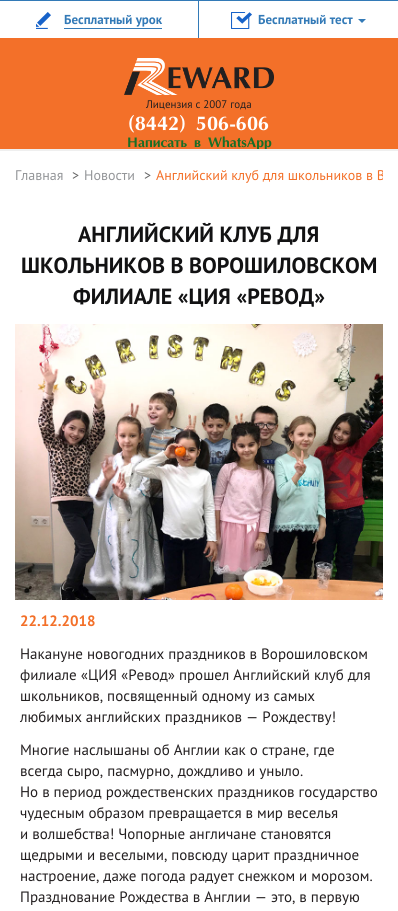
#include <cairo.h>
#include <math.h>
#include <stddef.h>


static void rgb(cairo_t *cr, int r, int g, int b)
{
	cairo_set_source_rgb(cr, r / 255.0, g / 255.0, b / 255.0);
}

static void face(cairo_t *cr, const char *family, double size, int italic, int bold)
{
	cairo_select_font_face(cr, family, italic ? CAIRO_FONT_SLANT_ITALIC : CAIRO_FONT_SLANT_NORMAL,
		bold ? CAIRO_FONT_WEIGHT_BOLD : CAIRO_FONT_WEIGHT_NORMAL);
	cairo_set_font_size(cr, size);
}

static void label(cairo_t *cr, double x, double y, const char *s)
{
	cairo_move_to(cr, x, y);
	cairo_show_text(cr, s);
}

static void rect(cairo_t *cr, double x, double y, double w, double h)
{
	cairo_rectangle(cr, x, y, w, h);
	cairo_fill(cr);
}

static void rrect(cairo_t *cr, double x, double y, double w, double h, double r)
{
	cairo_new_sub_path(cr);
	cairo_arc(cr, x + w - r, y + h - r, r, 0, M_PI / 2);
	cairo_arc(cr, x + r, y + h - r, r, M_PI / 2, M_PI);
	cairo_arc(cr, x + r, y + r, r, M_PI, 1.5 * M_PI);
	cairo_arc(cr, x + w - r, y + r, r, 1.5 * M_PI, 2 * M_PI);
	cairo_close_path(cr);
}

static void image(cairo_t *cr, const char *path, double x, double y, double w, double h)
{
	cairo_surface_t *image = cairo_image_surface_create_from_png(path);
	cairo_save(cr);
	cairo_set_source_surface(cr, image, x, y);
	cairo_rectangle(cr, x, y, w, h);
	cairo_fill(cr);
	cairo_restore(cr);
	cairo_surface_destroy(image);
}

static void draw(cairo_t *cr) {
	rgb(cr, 255, 255, 255);
	cairo_paint(cr);
	rgb(cr, 51, 122, 183);
	rect(cr, 0, 0, 398, 1);
	rect(cr, 198, 0, 1, 38);
	image(cr, "image0.png", 36, 12, 15, 17);
	face(cr, "PT Sans", 13, 0, 1);
	label(cr, 64, 24, "Бесплатный урок");
	rect(cr, 64, 28, 98, 1);
	image(cr, "image1.png", 231, 12, 21, 17);
	label(cr, 258, 24, "Бесплатный тест");
	cairo_new_path(cr);
	cairo_move_to(cr, 358, 19);
	cairo_line_to(cr, 366, 19);
	cairo_line_to(cr, 362, 23);
	cairo_close_path(cr);
	cairo_fill(cr);
	rgb(cr, 243, 112, 41);
	rect(cr, 0, 38, 398, 111);
	image(cr, "image2.png", 124, 58, 150, 37);
	face(cr, "PT Sans", 11, 0, 0);
	rgb(cr, 35, 31, 32);
	label(cr, 146, 108, "Лицензия с 2007 года");
	face(cr, "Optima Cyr", 20, 0, 1);
	rgb(cr, 255, 255, 255);
	label(cr, 128, 130, "(8442) 506-606");
	face(cr, "Optima Cyr", 14, 0, 1);
	rgb(cr, 24, 110, 38);
	label(cr, 127, 147, "Написать в WhatsApp");
	rgb(cr, 239, 239, 239);
	rect(cr, 0, 149, 398, 2);
	face(cr, "PT Sans", 14, 0, 0);
	rgb(cr, 147, 149, 152);
	label(cr, 15, 180, "Главная");
	rgb(cr, 102, 102, 102);
	label(cr, 72, 180, ">");
	rgb(cr, 147, 149, 152);
	label(cr, 84, 180, "Новости");
	rgb(cr, 102, 102, 102);
	label(cr, 144, 180, ">");
	cairo_save(cr);
	rrect(cr, 15, 151, 368, 48, 4);
	cairo_clip(cr);
	rgb(cr, 243, 112, 41);
	label(cr, 156, 180, "Английский клуб для школьников в В");
	cairo_restore(cr);
	face(cr, "PT Sans", 22, 0, 1);
	rgb(cr, 18, 18, 19);
	label(cr, 78, 242, "АНГЛИЙСКИЙ КЛУБ ДЛЯ");
	label(cr, 21, 273, "ШКОЛЬНИКОВ В ВОРОШИЛОВСКОМ");
	label(cr, 73, 304, "ФИЛИАЛЕ «ЦИЯ «РЕВОД»");
	image(cr, "image3.png", 15, 324, 368, 276);
	face(cr, "PT Sans", 15, 0, 1);
	rgb(cr, 243, 112, 41);
	label(cr, 20, 626, "22.12.2018");
	face(cr, "PT Sans", 15, 0, 0);
	rgb(cr, 35, 31, 32);
	label(cr, 20, 659, "Накануне новогодних праздников в Ворошиловском");
	label(cr, 20, 680, "филиале «ЦИЯ «Ревод» прошел Английский клуб для");
	label(cr, 20, 701, "школьников, посвященный одному из самых");
	label(cr, 20, 722, "любимых английских праздников — Рождеству!");
	label(cr, 20, 755, "Многие наслышаны об Англии как о стране, где");
	label(cr, 20, 776, "всегда сыро, пасмурно, дождливо и уныло.");
	label(cr, 20, 797, "Но в период рождественских праздников государство");
	label(cr, 20, 818, "чудесным образом превращается в мир веселья");
	label(cr, 20, 839, "и волшебства! Чопорные англичане становятся");
	label(cr, 20, 860, "щедрыми и веселыми, повсюду царит праздничное");
	label(cr, 20, 881, "настроение, даже погода радует снежком и морозом.");
	label(cr, 20, 902, "Празднование Рождества в Англии — это, в первую");
}

int main(void) {
	cairo_surface_t *surface = cairo_image_surface_create(CAIRO_FORMAT_RGB24, 398, 911);
	cairo_t *cr = cairo_create(surface);
	cairo_font_options_t *options = cairo_font_options_create();
	cairo_font_options_set_hint_metrics(options, CAIRO_HINT_METRICS_OFF);
	cairo_font_options_set_hint_style(options, CAIRO_HINT_STYLE_NONE);
	cairo_set_font_options(cr, options);
	cairo_set_miter_limit(cr, 4);
	draw(cr);
	cairo_surface_write_to_png(surface, "render.png");
	cairo_font_options_destroy(options);
	cairo_destroy(cr);
	cairo_surface_destroy(surface);
	return 0;
}
